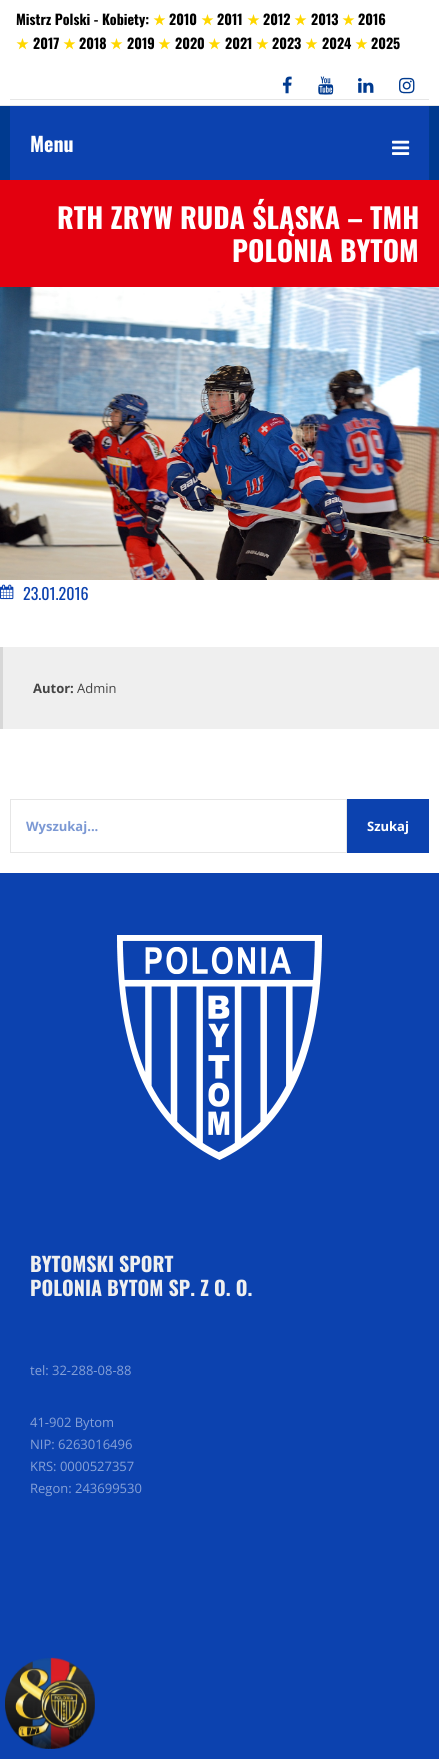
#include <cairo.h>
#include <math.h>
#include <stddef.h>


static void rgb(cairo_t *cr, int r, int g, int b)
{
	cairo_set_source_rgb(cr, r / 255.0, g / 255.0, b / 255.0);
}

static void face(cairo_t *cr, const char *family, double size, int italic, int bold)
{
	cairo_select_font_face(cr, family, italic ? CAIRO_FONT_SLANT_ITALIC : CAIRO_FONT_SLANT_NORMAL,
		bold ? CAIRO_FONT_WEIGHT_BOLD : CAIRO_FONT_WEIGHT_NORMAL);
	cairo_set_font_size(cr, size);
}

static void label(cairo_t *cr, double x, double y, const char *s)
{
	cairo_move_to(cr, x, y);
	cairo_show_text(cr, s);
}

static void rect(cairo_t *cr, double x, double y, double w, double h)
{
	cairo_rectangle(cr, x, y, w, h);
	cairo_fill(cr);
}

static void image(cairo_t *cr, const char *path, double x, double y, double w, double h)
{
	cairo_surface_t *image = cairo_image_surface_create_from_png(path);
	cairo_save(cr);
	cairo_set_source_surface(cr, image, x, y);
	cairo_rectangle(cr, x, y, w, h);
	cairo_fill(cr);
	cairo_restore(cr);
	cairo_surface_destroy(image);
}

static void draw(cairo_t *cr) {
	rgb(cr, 255, 255, 255);
	cairo_paint(cr);
	rgb(cr, 230, 230, 230);
	rect(cr, 0, 105, 439, 1);
	rect(cr, 10, 99, 419, 1);
	face(cr, "Oswald", 14, 0, 1);
	rgb(cr, 0, 0, 0);
	label(cr, 16, 25, "Mistrz Polski - Kobiety:");
	face(cr, "DejaVu Sans", 14, 0, 1);
	rgb(cr, 255, 215, 0);
	label(cr, 153, 25, "★");
	face(cr, "Oswald", 14, 0, 1);
	rgb(cr, 0, 0, 0);
	label(cr, 169, 25, "2010");
	face(cr, "DejaVu Sans", 14, 0, 1);
	rgb(cr, 255, 215, 0);
	label(cr, 201, 25, "★");
	face(cr, "Oswald", 14, 0, 1);
	rgb(cr, 0, 0, 0);
	label(cr, 217, 25, "2011");
	face(cr, "DejaVu Sans", 14, 0, 1);
	rgb(cr, 255, 215, 0);
	label(cr, 247, 25, "★");
	face(cr, "Oswald", 14, 0, 1);
	rgb(cr, 0, 0, 0);
	label(cr, 263, 25, "2012");
	face(cr, "DejaVu Sans", 14, 0, 1);
	rgb(cr, 255, 215, 0);
	label(cr, 294, 25, "★");
	face(cr, "Oswald", 14, 0, 1);
	rgb(cr, 0, 0, 0);
	label(cr, 311, 25, "2013");
	face(cr, "DejaVu Sans", 14, 0, 1);
	rgb(cr, 255, 215, 0);
	label(cr, 342, 25, "★");
	face(cr, "Oswald", 14, 0, 1);
	rgb(cr, 0, 0, 0);
	label(cr, 358, 25, "2016");
	face(cr, "DejaVu Sans", 14, 0, 1);
	rgb(cr, 255, 215, 0);
	label(cr, 16, 49, "★");
	face(cr, "Oswald", 14, 0, 1);
	rgb(cr, 0, 0, 0);
	label(cr, 33, 49, "2017");
	face(cr, "DejaVu Sans", 14, 0, 1);
	rgb(cr, 255, 215, 0);
	label(cr, 63, 49, "★");
	face(cr, "Oswald", 14, 0, 1);
	rgb(cr, 0, 0, 0);
	label(cr, 79, 49, "2018");
	face(cr, "DejaVu Sans", 14, 0, 1);
	rgb(cr, 255, 215, 0);
	label(cr, 110, 49, "★");
	face(cr, "Oswald", 14, 0, 1);
	rgb(cr, 0, 0, 0);
	label(cr, 127, 49, "2019");
	face(cr, "DejaVu Sans", 14, 0, 1);
	rgb(cr, 255, 215, 0);
	label(cr, 158, 49, "★");
	face(cr, "Oswald", 14, 0, 1);
	rgb(cr, 0, 0, 0);
	label(cr, 175, 49, "2020");
	face(cr, "DejaVu Sans", 14, 0, 1);
	rgb(cr, 255, 215, 0);
	label(cr, 208, 49, "★");
	face(cr, "Oswald", 14, 0, 1);
	rgb(cr, 0, 0, 0);
	label(cr, 225, 49, "2021");
	face(cr, "DejaVu Sans", 14, 0, 1);
	rgb(cr, 255, 215, 0);
	label(cr, 256, 49, "★");
	face(cr, "Oswald", 14, 0, 1);
	rgb(cr, 0, 0, 0);
	label(cr, 272, 49, "2023");
	face(cr, "DejaVu Sans", 14, 0, 1);
	rgb(cr, 255, 215, 0);
	label(cr, 305, 49, "★");
	face(cr, "Oswald", 14, 0, 1);
	rgb(cr, 0, 0, 0);
	label(cr, 322, 49, "2024");
	face(cr, "DejaVu Sans", 14, 0, 1);
	rgb(cr, 255, 215, 0);
	label(cr, 355, 49, "★");
	face(cr, "Oswald", 14, 0, 1);
	rgb(cr, 0, 0, 0);
	label(cr, 371, 49, "2025");
	image(cr, "image0.png", 282, 76, 10, 18);
	image(cr, "image1.png", 318, 76, 16, 19);
	image(cr, "image2.png", 358, 78, 16, 15);
	image(cr, "image3.png", 399, 77, 16, 17);
	rgb(cr, 0, 58, 143);
	rect(cr, 0, 106, 439, 74);
	rgb(cr, 12, 66, 175);
	rect(cr, 10, 106, 419, 74);
	face(cr, "Oswald", 20, 0, 1);
	rgb(cr, 255, 255, 255);
	label(cr, 30, 152, "Menu");
	image(cr, "image4.png", 392, 140, 18, 15);
	rgb(cr, 227, 0, 15);
	rect(cr, 0, 180, 439, 107);
	face(cr, "Oswald", 28, 0, 1);
	rgb(cr, 255, 255, 255);
	label(cr, 57, 229, "RTH ZRYW RUDA ŚLĄSKA – TMH");
	label(cr, 232, 262, "POLONIA BYTOM");
	image(cr, "image5.png", 0, 287, 439, 293);
	image(cr, "image6.png", 0, 584, 14, 16);
	face(cr, "Oswald", 16, 0, 0);
	rgb(cr, 12, 66, 175);
	label(cr, 23, 600, "23.01.2016");
	rgb(cr, 239, 239, 239);
	rect(cr, 3, 647, 436, 82);
	rgb(cr, 215, 215, 215);
	rect(cr, 0, 647, 3, 82);
	face(cr, "Open Sans", 13, 0, 1);
	rgb(cr, 68, 68, 68);
	label(cr, 33, 693, "Autor:");
	face(cr, "Open Sans", 13, 0, 0);
	label(cr, 77, 693, "Admin");
	cairo_rectangle(cr, 10.5, 799.5, 336, 53);
	rgb(cr, 230, 230, 230);
	cairo_set_line_width(cr, 1);
	cairo_stroke(cr);
	face(cr, "Open Sans", 13, 0, 1);
	rgb(cr, 124, 153, 212);
	label(cr, 26, 831, "Wyszukaj...");
	rgb(cr, 12, 66, 175);
	rect(cr, 347, 799, 82, 54);
	rgb(cr, 255, 255, 255);
	label(cr, 367, 831, "Szukaj");
	rgb(cr, 12, 66, 175);
	rect(cr, 0, 873, 439, 886);
	image(cr, "image7.png", 117, 935, 205, 225);
	face(cr, "Oswald", 20, 0, 1);
	rgb(cr, 239, 239, 239);
	label(cr, 30, 1272, "BYTOMSKI SPORT");
	label(cr, 30, 1296, "POLONIA BYTOM SP. Z O. O.");
	face(cr, "Open Sans", 13, 0, 0);
	rgb(cr, 134, 161, 215);
	label(cr, 30, 1375, "tel: 32-288-08-88");
	label(cr, 30, 1427, "41-902 Bytom");
	label(cr, 30, 1449, "NIP: 6263016496");
	label(cr, 30, 1471, "KRS: 0000527357");
	label(cr, 30, 1493, "Regon: 243699530");
	image(cr, "image8.png", 5, 1657, 90, 92);
}

int main(void) {
	cairo_surface_t *surface = cairo_image_surface_create(CAIRO_FORMAT_RGB24, 439, 1759);
	cairo_t *cr = cairo_create(surface);
	cairo_font_options_t *options = cairo_font_options_create();
	cairo_font_options_set_hint_metrics(options, CAIRO_HINT_METRICS_OFF);
	cairo_font_options_set_hint_style(options, CAIRO_HINT_STYLE_NONE);
	cairo_set_font_options(cr, options);
	cairo_set_miter_limit(cr, 4);
	draw(cr);
	cairo_surface_write_to_png(surface, "render.png");
	cairo_font_options_destroy(options);
	cairo_destroy(cr);
	cairo_surface_destroy(surface);
	return 0;
}
